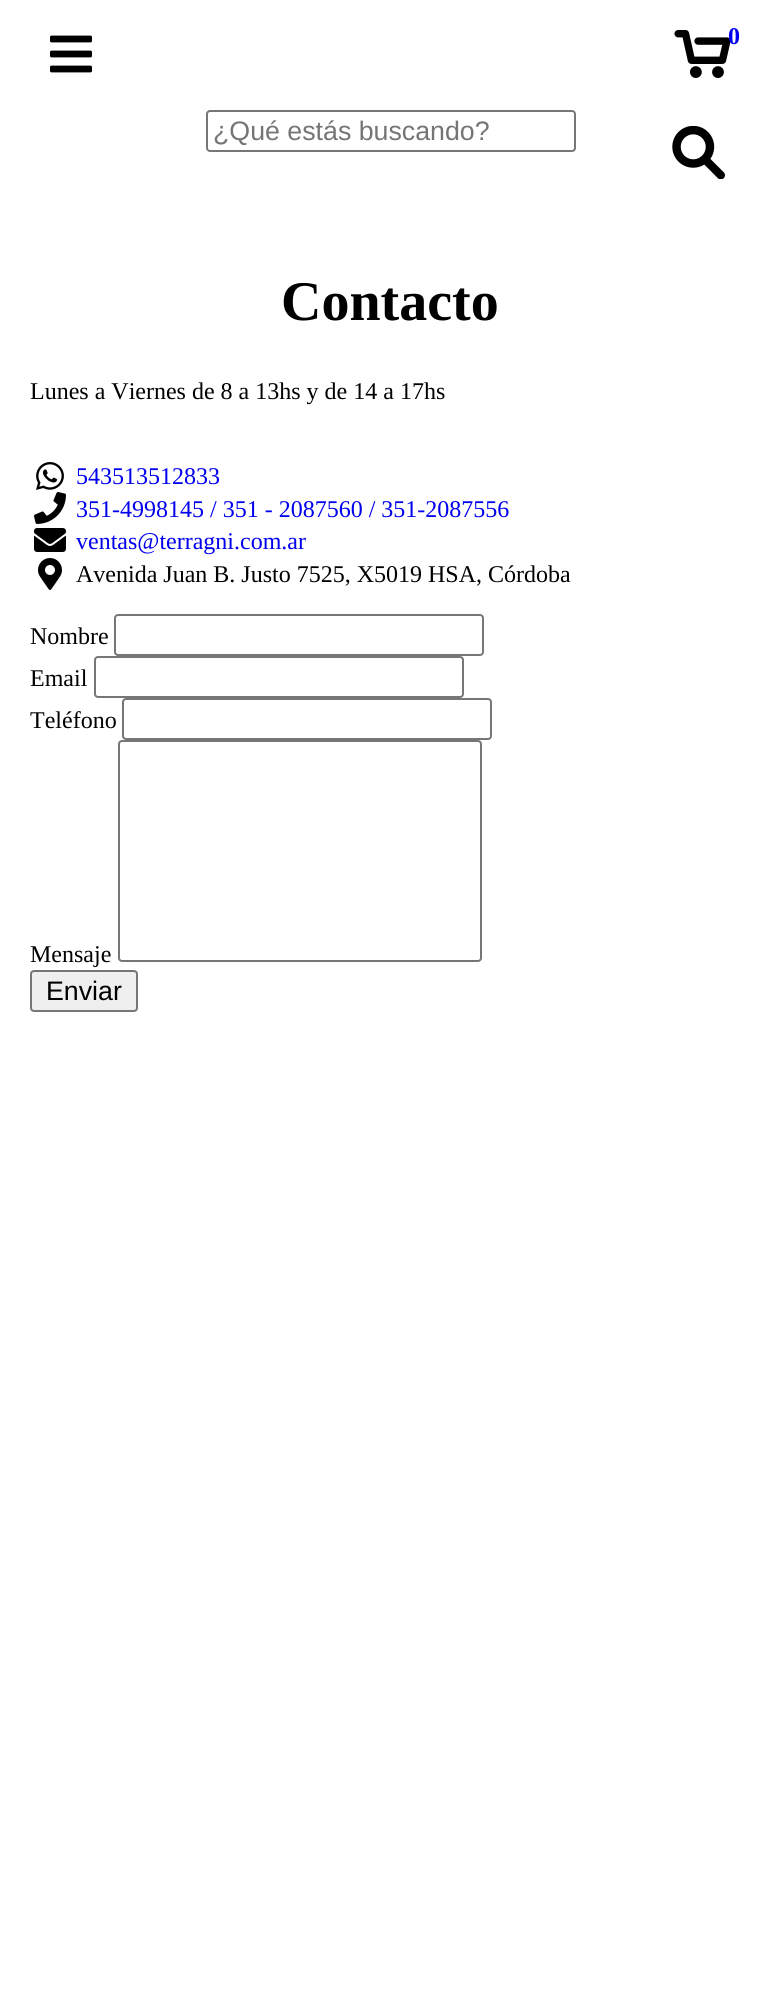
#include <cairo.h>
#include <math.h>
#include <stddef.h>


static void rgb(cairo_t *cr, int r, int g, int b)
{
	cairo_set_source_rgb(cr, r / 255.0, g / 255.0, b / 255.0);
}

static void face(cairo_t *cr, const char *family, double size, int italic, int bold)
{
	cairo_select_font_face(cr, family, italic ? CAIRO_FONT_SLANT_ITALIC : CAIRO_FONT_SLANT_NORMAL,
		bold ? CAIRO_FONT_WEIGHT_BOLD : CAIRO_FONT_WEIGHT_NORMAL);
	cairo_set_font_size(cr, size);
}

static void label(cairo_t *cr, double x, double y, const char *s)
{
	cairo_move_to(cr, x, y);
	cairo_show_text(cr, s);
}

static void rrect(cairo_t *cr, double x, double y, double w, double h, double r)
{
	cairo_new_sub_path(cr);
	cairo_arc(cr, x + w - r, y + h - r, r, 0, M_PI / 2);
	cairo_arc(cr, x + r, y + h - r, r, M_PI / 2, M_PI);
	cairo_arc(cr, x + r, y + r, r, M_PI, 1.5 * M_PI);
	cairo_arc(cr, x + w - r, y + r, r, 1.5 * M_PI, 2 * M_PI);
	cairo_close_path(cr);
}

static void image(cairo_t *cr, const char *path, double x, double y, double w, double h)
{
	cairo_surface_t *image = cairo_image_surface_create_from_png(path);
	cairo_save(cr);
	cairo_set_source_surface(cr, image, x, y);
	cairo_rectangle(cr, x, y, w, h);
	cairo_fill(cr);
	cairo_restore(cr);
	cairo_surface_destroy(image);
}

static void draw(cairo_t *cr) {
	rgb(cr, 255, 255, 255);
	cairo_paint(cr);
	image(cr, "image0.png", 50, 35, 42, 38);
	image(cr, "image1.png", 674, 30, 57, 48);
	face(cr, "Liberation Serif", 24, 0, 1);
	rgb(cr, 0, 0, 238);
	label(cr, 728, 44, "0");
	rrect(cr, 207, 111, 368, 40, 3);
	rgb(cr, 118, 118, 118);
	cairo_stroke(cr);
	face(cr, "Liberation Sans", 26.75, 0, 0);
	rgb(cr, 117, 117, 117);
	label(cr, 213, 140, "¿Qué estás buscando?");
	image(cr, "image2.png", 672, 126, 53, 53);
	face(cr, "Liberation Serif", 56, 0, 1);
	rgb(cr, 0, 0, 0);
	label(cr, 281, 320, "Contacto");
	face(cr, "Liberation Serif", 24, 0, 0);
	label(cr, 30, 399, "Lunes a Viernes de 8 a 13hs y de 14 a 17hs");
	image(cr, "image3.png", 36, 462, 28, 28);
	rgb(cr, 0, 0, 238);
	label(cr, 76, 484, "543513512833");
	image(cr, "image4.png", 34, 492, 32, 32);
	label(cr, 76, 517, "351-4998145 / 351 - 2087560 / 351-2087556");
	image(cr, "image5.png", 34, 528, 32, 24);
	label(cr, 76, 549, "ventas@terragni.com.ar");
	image(cr, "image6.png", 38, 558, 24, 32);
	rgb(cr, 0, 0, 0);
	label(cr, 76, 582, "Avenida Juan B. Justo 7525, X5019 HSA, Córdoba");
	label(cr, 30, 644, "Nombre");
	rrect(cr, 115, 615, 368, 40, 3);
	rgb(cr, 118, 118, 118);
	cairo_stroke(cr);
	rgb(cr, 0, 0, 0);
	label(cr, 30, 686, "Email");
	rrect(cr, 95, 657, 368, 40, 3);
	rgb(cr, 118, 118, 118);
	cairo_stroke(cr);
	rgb(cr, 0, 0, 0);
	label(cr, 30, 728, "Teléfono");
	rrect(cr, 123, 699, 368, 40, 3);
	rgb(cr, 118, 118, 118);
	cairo_stroke(cr);
	rgb(cr, 0, 0, 0);
	label(cr, 30, 962, "Mensaje");
	rrect(cr, 119, 741, 362, 220, 3);
	rgb(cr, 118, 118, 118);
	cairo_stroke(cr);
	rgb(cr, 239, 239, 239);
	rrect(cr, 31, 971, 106, 40, 3);
	cairo_fill_preserve(cr);
	rgb(cr, 118, 118, 118);
	cairo_stroke(cr);
	face(cr, "Liberation Sans", 26.75, 0, 0);
	rgb(cr, 0, 0, 0);
	label(cr, 46, 1000, "Enviar");
}

int main(void) {
	cairo_surface_t *surface = cairo_image_surface_create(CAIRO_FORMAT_RGB24, 780, 1992);
	cairo_t *cr = cairo_create(surface);
	cairo_font_options_t *options = cairo_font_options_create();
	cairo_font_options_set_hint_metrics(options, CAIRO_HINT_METRICS_OFF);
	cairo_font_options_set_hint_style(options, CAIRO_HINT_STYLE_NONE);
	cairo_set_font_options(cr, options);
	cairo_set_miter_limit(cr, 4);
	draw(cr);
	cairo_surface_write_to_png(surface, "render.png");
	cairo_font_options_destroy(options);
	cairo_destroy(cr);
	cairo_surface_destroy(surface);
	return 0;
}
